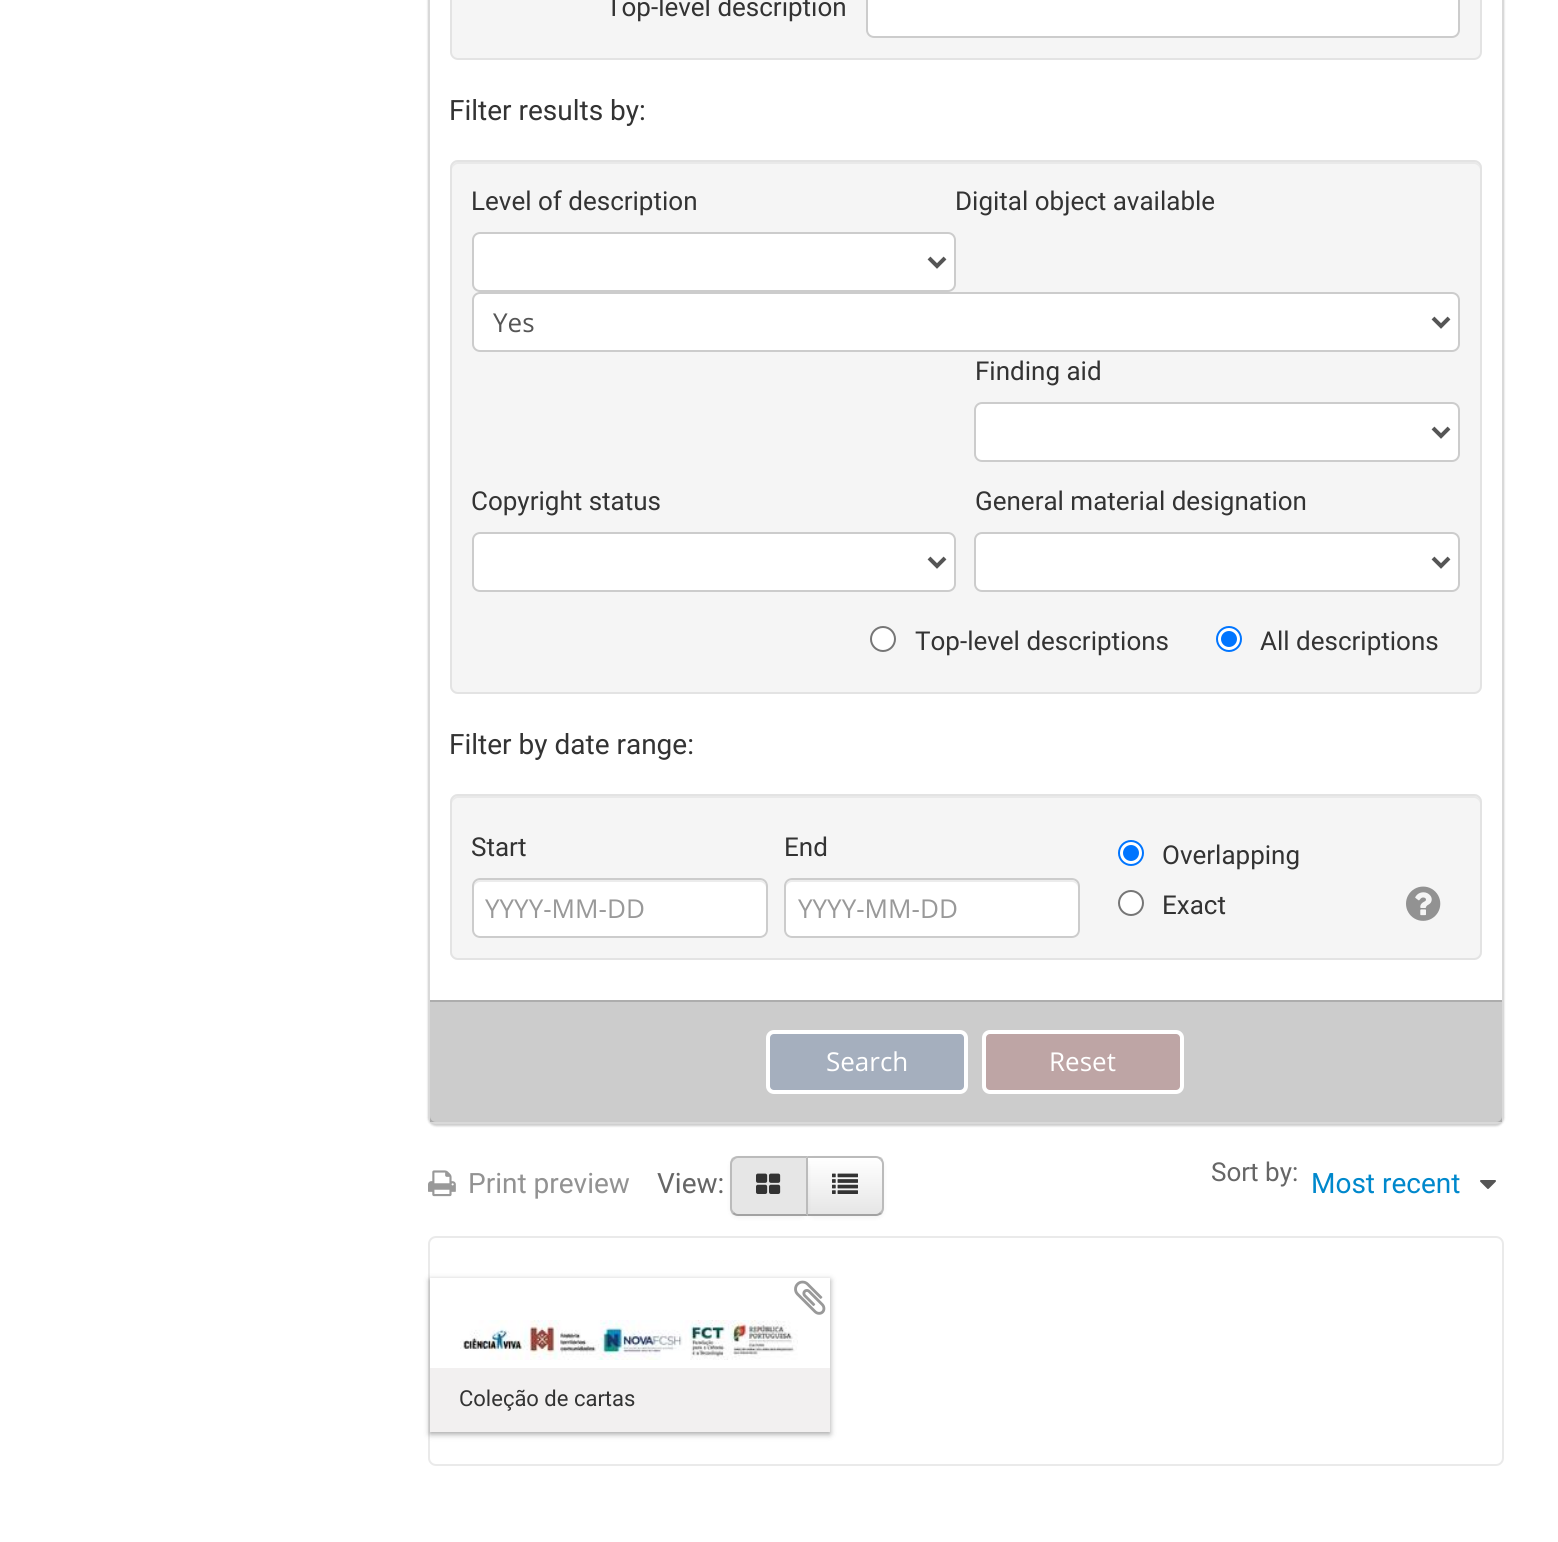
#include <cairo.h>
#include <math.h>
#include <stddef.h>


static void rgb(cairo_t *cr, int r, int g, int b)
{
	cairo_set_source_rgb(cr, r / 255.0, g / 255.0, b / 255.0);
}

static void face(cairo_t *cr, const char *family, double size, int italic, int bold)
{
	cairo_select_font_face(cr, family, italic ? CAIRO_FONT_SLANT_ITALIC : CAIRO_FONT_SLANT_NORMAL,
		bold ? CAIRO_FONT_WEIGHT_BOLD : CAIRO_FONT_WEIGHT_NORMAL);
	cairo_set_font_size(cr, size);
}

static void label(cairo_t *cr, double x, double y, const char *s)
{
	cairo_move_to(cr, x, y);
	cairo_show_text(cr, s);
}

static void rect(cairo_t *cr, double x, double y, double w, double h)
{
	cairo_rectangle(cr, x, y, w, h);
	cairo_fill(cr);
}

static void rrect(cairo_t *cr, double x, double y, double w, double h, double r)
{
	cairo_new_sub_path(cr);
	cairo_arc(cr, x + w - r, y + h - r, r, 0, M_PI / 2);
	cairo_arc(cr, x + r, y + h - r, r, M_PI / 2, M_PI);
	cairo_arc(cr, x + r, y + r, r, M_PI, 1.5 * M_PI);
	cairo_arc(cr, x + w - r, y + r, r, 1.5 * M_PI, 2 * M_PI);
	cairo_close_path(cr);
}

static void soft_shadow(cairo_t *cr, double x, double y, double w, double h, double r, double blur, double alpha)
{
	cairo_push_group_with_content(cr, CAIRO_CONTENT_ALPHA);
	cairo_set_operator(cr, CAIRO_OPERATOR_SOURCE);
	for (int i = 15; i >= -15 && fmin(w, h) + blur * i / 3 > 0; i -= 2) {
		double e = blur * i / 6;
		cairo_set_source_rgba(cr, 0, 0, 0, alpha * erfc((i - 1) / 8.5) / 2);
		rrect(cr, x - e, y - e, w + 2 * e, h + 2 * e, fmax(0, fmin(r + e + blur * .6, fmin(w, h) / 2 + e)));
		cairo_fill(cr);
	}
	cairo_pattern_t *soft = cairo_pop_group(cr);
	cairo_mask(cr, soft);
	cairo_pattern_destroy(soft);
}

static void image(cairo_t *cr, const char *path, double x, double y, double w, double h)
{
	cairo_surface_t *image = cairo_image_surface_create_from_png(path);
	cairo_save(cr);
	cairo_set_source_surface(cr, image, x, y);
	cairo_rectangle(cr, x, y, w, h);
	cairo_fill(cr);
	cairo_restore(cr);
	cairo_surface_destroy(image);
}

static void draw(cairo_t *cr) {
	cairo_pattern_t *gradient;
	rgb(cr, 255, 255, 255);
	cairo_paint(cr);
	rgb(cr, 0, 0, 0);
	soft_shadow(cr, 428, -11, 1076, 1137, 8, 1, 0.2);
	rgb(cr, 255, 255, 255);
	rrect(cr, 429, -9, 1074, 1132, 7);
	cairo_fill_preserve(cr);
	rgb(cr, 217, 217, 217);
	cairo_stroke(cr);
	rgb(cr, 245, 245, 245);
	rrect(cr, 451, -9, 1030, 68, 7);
	cairo_fill_preserve(cr);
	rgb(cr, 227, 227, 227);
	cairo_stroke(cr);
	face(cr, "Roboto", 26, 0, 0);
	rgb(cr, 51, 51, 51);
	label(cr, 606, 16, "Top-level description");
	rgb(cr, 255, 255, 255);
	rrect(cr, 867, -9, 592, 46, 7);
	cairo_fill_preserve(cr);
	rgb(cr, 204, 204, 204);
	cairo_stroke(cr);
	face(cr, "Roboto", 28, 0, 0);
	rgb(cr, 51, 51, 51);
	label(cr, 449, 120, "Filter results by:");
	rgb(cr, 245, 245, 245);
	rrect(cr, 450, 160, 1032, 534, 8);
	cairo_fill(cr);
	rgb(cr, 233, 233, 233);
	cairo_new_path(cr);
	cairo_move_to(cr, 458, 164);
	cairo_line_to(cr, 1474, 164);
	cairo_curve_to(cr, 1477, 164, 1480, 167, 1480, 170);
	cairo_line_to(cr, 1480, 168);
	cairo_curve_to(cr, 1480, 165, 1477, 162, 1474, 162);
	cairo_line_to(cr, 458, 162);
	cairo_curve_to(cr, 455, 162, 452, 165, 452, 168);
	cairo_line_to(cr, 452, 170);
	cairo_curve_to(cr, 452, 167, 455, 164, 458, 164);
	cairo_close_path(cr);
	cairo_fill(cr);
	rrect(cr, 451, 161, 1030, 532, 7);
	rgb(cr, 227, 227, 227);
	cairo_stroke(cr);
	face(cr, "Roboto", 26, 0, 0);
	rgb(cr, 51, 51, 51);
	label(cr, 471, 210, "Level of description");
	rgb(cr, 255, 255, 255);
	rrect(cr, 473, 233, 482, 58, 7);
	cairo_fill_preserve(cr);
	rgb(cr, 204, 204, 204);
	cairo_stroke(cr);
	cairo_new_path(cr);
	cairo_move_to(cr, 929, 258);
	cairo_line_to(cr, 937, 266);
	cairo_line_to(cr, 945, 258);
	rgb(cr, 85, 85, 85);
	cairo_set_line_width(cr, 4);
	cairo_stroke(cr);
	rgb(cr, 51, 51, 51);
	label(cr, 955, 210, "Digital object available");
	rgb(cr, 255, 255, 255);
	rrect(cr, 473, 293, 986, 58, 7);
	cairo_fill_preserve(cr);
	rgb(cr, 204, 204, 204);
	cairo_set_line_width(cr, 2);
	cairo_stroke(cr);
	cairo_new_path(cr);
	cairo_move_to(cr, 1433, 318);
	cairo_line_to(cr, 1441, 326);
	cairo_line_to(cr, 1449, 318);
	rgb(cr, 85, 85, 85);
	cairo_set_line_width(cr, 4);
	cairo_stroke(cr);
	face(cr, "Open Sans", 26, 0, 0);
	label(cr, 493, 332, "Yes");
	face(cr, "Roboto", 26, 0, 0);
	rgb(cr, 51, 51, 51);
	label(cr, 975, 380, "Finding aid");
	rgb(cr, 255, 255, 255);
	rrect(cr, 975, 403, 484, 58, 7);
	cairo_fill_preserve(cr);
	rgb(cr, 204, 204, 204);
	cairo_set_line_width(cr, 2);
	cairo_stroke(cr);
	cairo_new_path(cr);
	cairo_move_to(cr, 1433, 428);
	cairo_line_to(cr, 1441, 436);
	cairo_line_to(cr, 1449, 428);
	rgb(cr, 85, 85, 85);
	cairo_set_line_width(cr, 4);
	cairo_stroke(cr);
	rgb(cr, 51, 51, 51);
	label(cr, 471, 510, "Copyright status");
	rgb(cr, 255, 255, 255);
	rrect(cr, 473, 533, 482, 58, 7);
	cairo_fill_preserve(cr);
	rgb(cr, 204, 204, 204);
	cairo_set_line_width(cr, 2);
	cairo_stroke(cr);
	cairo_new_path(cr);
	cairo_move_to(cr, 929, 558);
	cairo_line_to(cr, 937, 566);
	cairo_line_to(cr, 945, 558);
	rgb(cr, 85, 85, 85);
	cairo_set_line_width(cr, 4);
	cairo_stroke(cr);
	rgb(cr, 51, 51, 51);
	label(cr, 975, 510, "General material designation");
	rgb(cr, 255, 255, 255);
	rrect(cr, 975, 533, 484, 58, 7);
	cairo_fill_preserve(cr);
	rgb(cr, 204, 204, 204);
	cairo_set_line_width(cr, 2);
	cairo_stroke(cr);
	cairo_new_path(cr);
	cairo_move_to(cr, 1433, 558);
	cairo_line_to(cr, 1441, 566);
	cairo_line_to(cr, 1449, 558);
	rgb(cr, 85, 85, 85);
	cairo_set_line_width(cr, 4);
	cairo_stroke(cr);
	rgb(cr, 255, 255, 255);
	cairo_arc(cr, 883, 639, 12, 0, 2 * M_PI);
	cairo_fill_preserve(cr);
	rgb(cr, 118, 118, 118);
	cairo_set_line_width(cr, 2);
	cairo_stroke(cr);
	rgb(cr, 51, 51, 51);
	label(cr, 915, 650, "Top-level descriptions");
	rgb(cr, 255, 255, 255);
	cairo_new_path(cr);
	cairo_arc(cr, 1229, 639, 12, 0, 2 * M_PI);
	cairo_fill_preserve(cr);
	rgb(cr, 0, 117, 255);
	cairo_stroke(cr);
	cairo_arc(cr, 1229, 639, 8, 0, 2 * M_PI);
	cairo_fill(cr);
	rgb(cr, 51, 51, 51);
	label(cr, 1260, 650, "All descriptions");
	face(cr, "Roboto", 28, 0, 0);
	label(cr, 449, 754, "Filter by date range:");
	rgb(cr, 245, 245, 245);
	rrect(cr, 450, 794, 1032, 166, 8);
	cairo_fill(cr);
	rgb(cr, 233, 233, 233);
	cairo_new_path(cr);
	cairo_move_to(cr, 458, 798);
	cairo_line_to(cr, 1474, 798);
	cairo_curve_to(cr, 1477, 798, 1480, 801, 1480, 804);
	cairo_line_to(cr, 1480, 802);
	cairo_curve_to(cr, 1480, 799, 1477, 796, 1474, 796);
	cairo_line_to(cr, 458, 796);
	cairo_curve_to(cr, 455, 796, 452, 799, 452, 802);
	cairo_line_to(cr, 452, 804);
	cairo_curve_to(cr, 452, 801, 455, 798, 458, 798);
	cairo_close_path(cr);
	cairo_fill(cr);
	rrect(cr, 451, 795, 1030, 164, 7);
	rgb(cr, 227, 227, 227);
	cairo_stroke(cr);
	face(cr, "Roboto", 26, 0, 0);
	rgb(cr, 51, 51, 51);
	label(cr, 471, 856, "Start");
	rgb(cr, 255, 255, 255);
	rrect(cr, 472, 878, 296, 60, 8);
	cairo_fill(cr);
	rgb(cr, 236, 236, 236);
	cairo_new_path(cr);
	cairo_move_to(cr, 480, 882);
	cairo_line_to(cr, 760, 882);
	cairo_curve_to(cr, 763, 882, 766, 885, 766, 888);
	cairo_line_to(cr, 766, 886);
	cairo_curve_to(cr, 766, 883, 763, 880, 760, 880);
	cairo_line_to(cr, 480, 880);
	cairo_curve_to(cr, 477, 880, 474, 883, 474, 886);
	cairo_line_to(cr, 474, 888);
	cairo_curve_to(cr, 474, 885, 477, 882, 480, 882);
	cairo_close_path(cr);
	cairo_fill(cr);
	rrect(cr, 473, 879, 294, 58, 7);
	rgb(cr, 204, 204, 204);
	cairo_stroke(cr);
	face(cr, "Open Sans", 26, 0, 0);
	rgb(cr, 153, 153, 153);
	label(cr, 485, 918, "YYYY-MM-DD");
	face(cr, "Roboto", 26, 0, 0);
	rgb(cr, 51, 51, 51);
	label(cr, 784, 856, "End");
	rgb(cr, 255, 255, 255);
	rrect(cr, 784, 878, 296, 60, 8);
	cairo_fill(cr);
	rgb(cr, 236, 236, 236);
	cairo_new_path(cr);
	cairo_move_to(cr, 792, 882);
	cairo_line_to(cr, 1072, 882);
	cairo_curve_to(cr, 1075, 882, 1078, 885, 1078, 888);
	cairo_line_to(cr, 1078, 886);
	cairo_curve_to(cr, 1078, 883, 1075, 880, 1072, 880);
	cairo_line_to(cr, 792, 880);
	cairo_curve_to(cr, 789, 880, 786, 883, 786, 886);
	cairo_line_to(cr, 786, 888);
	cairo_curve_to(cr, 786, 885, 789, 882, 792, 882);
	cairo_close_path(cr);
	cairo_fill(cr);
	rrect(cr, 785, 879, 294, 58, 7);
	rgb(cr, 204, 204, 204);
	cairo_stroke(cr);
	face(cr, "Open Sans", 26, 0, 0);
	rgb(cr, 153, 153, 153);
	label(cr, 798, 918, "YYYY-MM-DD");
	rgb(cr, 255, 255, 255);
	cairo_new_path(cr);
	cairo_arc(cr, 1131, 853, 12, 0, 2 * M_PI);
	cairo_fill_preserve(cr);
	rgb(cr, 0, 117, 255);
	cairo_stroke(cr);
	cairo_arc(cr, 1131, 853, 8, 0, 2 * M_PI);
	cairo_fill(cr);
	face(cr, "Roboto", 26, 0, 0);
	rgb(cr, 51, 51, 51);
	label(cr, 1162, 864, "Overlapping");
	rgb(cr, 255, 255, 255);
	cairo_new_path(cr);
	cairo_arc(cr, 1131, 903, 12, 0, 2 * M_PI);
	cairo_fill_preserve(cr);
	rgb(cr, 118, 118, 118);
	cairo_stroke(cr);
	rgb(cr, 51, 51, 51);
	label(cr, 1162, 914, "Exact");
	image(cr, "image0.png", 1406, 886, 35, 35);
	cairo_set_source_rgba(cr, 0, 0, 0, 0.2);
	rect(cr, 430, 1002, 1072, 120);
	rgb(cr, 173, 173, 173);
	rect(cr, 430, 1000, 1072, 2);
	rgb(cr, 165, 175, 190);
	rrect(cr, 768, 1032, 198, 60, 6);
	cairo_fill_preserve(cr);
	rgb(cr, 255, 255, 255);
	cairo_set_line_width(cr, 4);
	cairo_stroke(cr);
	face(cr, "Open Sans", 26, 0, 0);
	label(cr, 826, 1071, "Search");
	rgb(cr, 190, 165, 165);
	rrect(cr, 984, 1032, 198, 60, 6);
	cairo_fill_preserve(cr);
	rgb(cr, 255, 255, 255);
	cairo_stroke(cr);
	label(cr, 1049, 1071, "Reset");
	image(cr, "image1.png", 428, 1170, 28, 27);
	face(cr, "Roboto", 28, 0, 0);
	rgb(cr, 146, 146, 146);
	label(cr, 468, 1193, "Print preview");
	rgb(cr, 102, 102, 102);
	label(cr, 657, 1193, "View:");
	rgb(cr, 0, 0, 0);
	soft_shadow(cr, 806, 1158, 78, 60, 8, 2, 0.05);
	cairo_save(cr);
	cairo_new_path(cr);
	cairo_move_to(cr, 806, 1156);
	cairo_line_to(cr, 876, 1156);
	cairo_curve_to(cr, 880.5, 1156, 884, 1159.5, 884, 1164);
	cairo_line_to(cr, 884, 1208);
	cairo_curve_to(cr, 884, 1212.5, 880.5, 1216, 876, 1216);
	cairo_line_to(cr, 806, 1216);
	cairo_close_path(cr);
	cairo_clip(cr);
	gradient = cairo_pattern_create_linear(845, 1158, 845, 1214);
	cairo_pattern_add_color_stop_rgba(gradient, 0, 1, 1, 1, 1);
	cairo_pattern_add_color_stop_rgba(gradient, 1, 0.902, 0.902, 0.902, 1);
	cairo_set_source(cr, gradient);
	cairo_pattern_destroy(gradient);
	rect(cr, 808, 1158, 76, 56);
	cairo_restore(cr);
	rgb(cr, 187, 187, 187);
	cairo_new_path(cr);
	cairo_move_to(cr, 806, 1156);
	cairo_line_to(cr, 808, 1158);
	cairo_line_to(cr, 876, 1158);
	cairo_curve_to(cr, 878, 1158, 879, 1159, 880, 1160);
	cairo_line_to(cr, 882, 1158);
	cairo_curve_to(cr, 880, 1157, 878, 1156, 876, 1156);
	cairo_close_path(cr);
	cairo_fill(cr);
	cairo_new_path(cr);
	cairo_move_to(cr, 884, 1208);
	cairo_line_to(cr, 884, 1164);
	cairo_curve_to(cr, 884, 1162, 883, 1160, 882, 1158);
	cairo_line_to(cr, 880, 1160);
	cairo_curve_to(cr, 881, 1161, 882, 1162, 882, 1164);
	cairo_line_to(cr, 882, 1208);
	cairo_curve_to(cr, 882, 1210, 881, 1211, 880, 1212);
	cairo_line_to(cr, 882, 1214);
	cairo_curve_to(cr, 883, 1212, 884, 1210, 884, 1208);
	cairo_close_path(cr);
	cairo_fill(cr);
	rgb(cr, 162, 162, 162);
	cairo_new_path(cr);
	cairo_move_to(cr, 876, 1216);
	cairo_curve_to(cr, 878, 1216, 880, 1215, 882, 1214);
	cairo_line_to(cr, 880, 1212);
	cairo_curve_to(cr, 879, 1213, 878, 1214, 876, 1214);
	cairo_line_to(cr, 808, 1214);
	cairo_line_to(cr, 806, 1216);
	cairo_close_path(cr);
	cairo_fill(cr);
	rgb(cr, 0, 0, 0);
	soft_shadow(cr, 730, 1158, 78, 60, 8, 2, 0.05);
	rgb(cr, 230, 230, 230);
	cairo_new_path(cr);
	cairo_move_to(cr, 738, 1156);
	cairo_line_to(cr, 808, 1156);
	cairo_line_to(cr, 808, 1216);
	cairo_line_to(cr, 738, 1216);
	cairo_curve_to(cr, 733.5, 1216, 730, 1212.5, 730, 1208);
	cairo_line_to(cr, 730, 1164);
	cairo_curve_to(cr, 730, 1159.5, 733.5, 1156, 738, 1156);
	cairo_close_path(cr);
	cairo_fill(cr);
	rgb(cr, 187, 187, 187);
	cairo_new_path(cr);
	cairo_move_to(cr, 738, 1156);
	cairo_curve_to(cr, 736, 1156, 734, 1157, 732, 1158);
	cairo_line_to(cr, 734, 1160);
	cairo_curve_to(cr, 735, 1159, 736, 1158, 738, 1158);
	cairo_line_to(cr, 806, 1158);
	cairo_line_to(cr, 808, 1156);
	cairo_close_path(cr);
	cairo_fill(cr);
	cairo_new_path(cr);
	cairo_move_to(cr, 808, 1156);
	cairo_line_to(cr, 806, 1158);
	cairo_line_to(cr, 806, 1214);
	cairo_line_to(cr, 808, 1216);
	cairo_close_path(cr);
	cairo_fill(cr);
	rgb(cr, 162, 162, 162);
	cairo_new_path(cr);
	cairo_move_to(cr, 808, 1216);
	cairo_line_to(cr, 806, 1214);
	cairo_line_to(cr, 738, 1214);
	cairo_curve_to(cr, 736, 1214, 735, 1213, 734, 1212);
	cairo_line_to(cr, 732, 1214);
	cairo_curve_to(cr, 734, 1215, 736, 1216, 738, 1216);
	cairo_close_path(cr);
	cairo_fill(cr);
	rgb(cr, 187, 187, 187);
	cairo_new_path(cr);
	cairo_move_to(cr, 730, 1164);
	cairo_line_to(cr, 730, 1208);
	cairo_curve_to(cr, 730, 1210, 731, 1212, 732, 1214);
	cairo_line_to(cr, 734, 1212);
	cairo_curve_to(cr, 733, 1211, 732, 1210, 732, 1208);
	cairo_line_to(cr, 732, 1164);
	cairo_curve_to(cr, 732, 1162, 733, 1161, 734, 1160);
	cairo_line_to(cr, 732, 1158);
	cairo_curve_to(cr, 731, 1160, 730, 1162, 730, 1164);
	cairo_close_path(cr);
	cairo_fill(cr);
	image(cr, "image2.png", 756, 1173, 25, 21);
	image(cr, "image3.png", 832, 1173, 26, 21);
	face(cr, "Roboto", 26, 0, 0);
	rgb(cr, 102, 102, 102);
	label(cr, 1211, 1181, "Sort by:");
	face(cr, "Roboto", 28, 0, 0);
	rgb(cr, 0, 136, 204);
	label(cr, 1311, 1193, "Most recent");
	image(cr, "image4.png", 1480, 1180, 16, 9);
	rrect(cr, 429, 1237, 1074, 228, 7);
	rgb(cr, 234, 234, 234);
	cairo_set_line_width(cr, 2);
	cairo_stroke(cr);
	cairo_save(cr);
	cairo_set_fill_rule(cr, CAIRO_FILL_RULE_EVEN_ODD);
	cairo_new_path(cr);
	cairo_move_to(cr, 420, 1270);
	cairo_line_to(cr, 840, 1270);
	cairo_line_to(cr, 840, 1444);
	cairo_line_to(cr, 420, 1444);
	cairo_close_path(cr);
	cairo_move_to(cr, 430, 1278);
	cairo_line_to(cr, 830, 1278);
	cairo_line_to(cr, 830, 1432);
	cairo_line_to(cr, 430, 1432);
	cairo_close_path(cr);
	cairo_clip(cr);
	rgb(cr, 25, 25, 25);
	soft_shadow(cr, 430, 1280, 400, 154, 0, 3, 0.4);
	cairo_restore(cr);
	image(cr, "image5.png", 460, 1320, 338, 40);
	rgb(cr, 242, 240, 240);
	rect(cr, 430, 1368, 400, 64);
	image(cr, "image6.png", 794, 1280, 32, 35);
	face(cr, "Roboto", 22, 0, 0);
	rgb(cr, 51, 51, 51);
	label(cr, 459, 1406, "Coleção de cartas");
}

int main(void) {
	cairo_surface_t *surface = cairo_image_surface_create(CAIRO_FORMAT_RGB24, 1558, 1542);
	cairo_t *cr = cairo_create(surface);
	cairo_font_options_t *options = cairo_font_options_create();
	cairo_font_options_set_hint_metrics(options, CAIRO_HINT_METRICS_OFF);
	cairo_font_options_set_hint_style(options, CAIRO_HINT_STYLE_NONE);
	cairo_set_font_options(cr, options);
	cairo_set_miter_limit(cr, 4);
	draw(cr);
	cairo_surface_write_to_png(surface, "render.png");
	cairo_font_options_destroy(options);
	cairo_destroy(cr);
	cairo_surface_destroy(surface);
	return 0;
}
